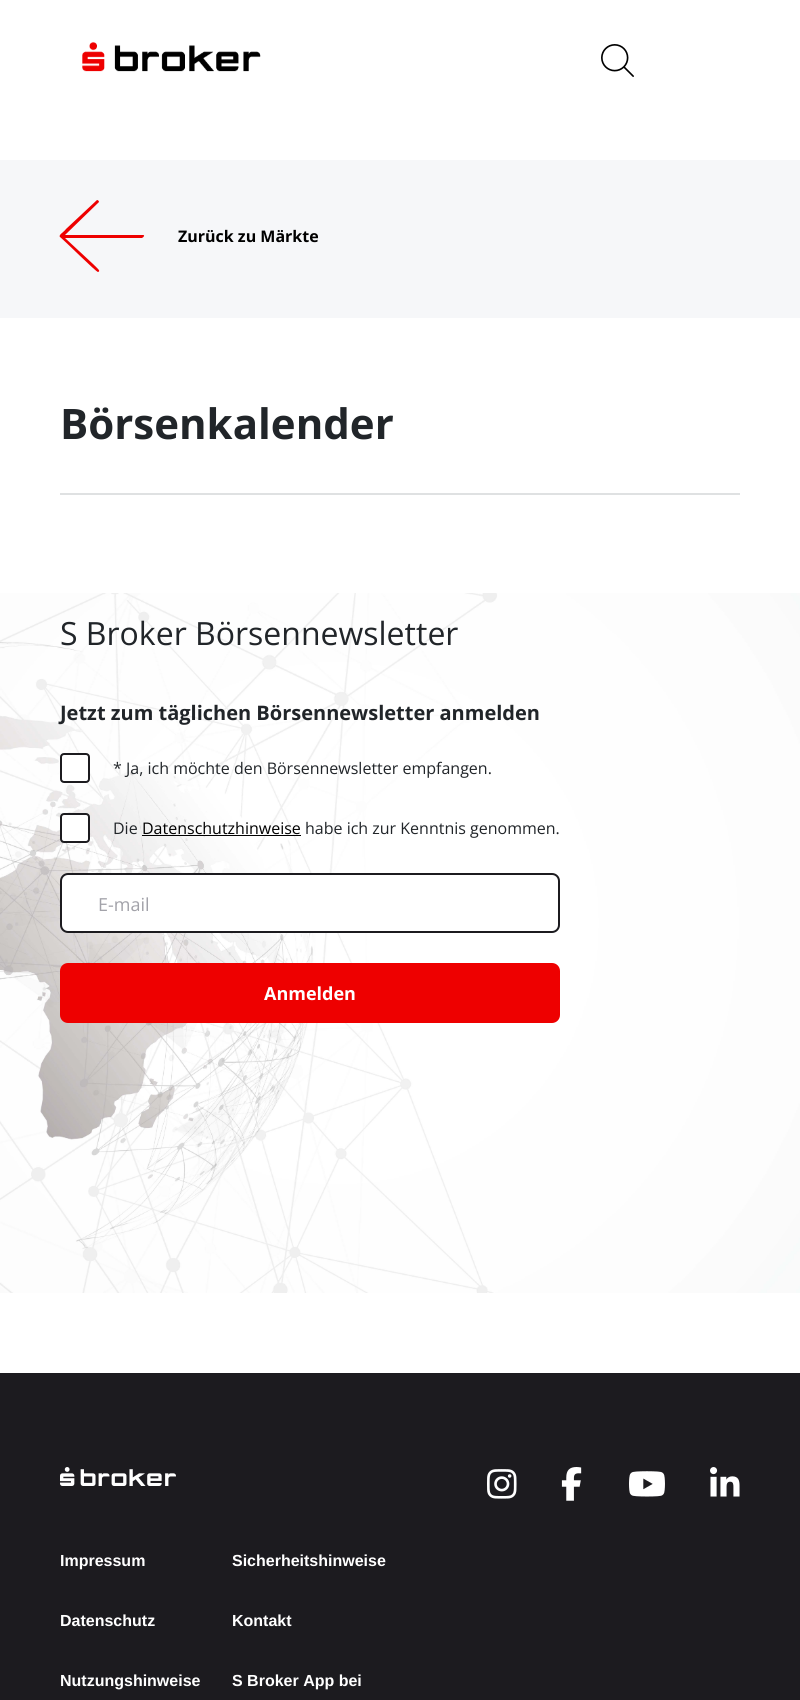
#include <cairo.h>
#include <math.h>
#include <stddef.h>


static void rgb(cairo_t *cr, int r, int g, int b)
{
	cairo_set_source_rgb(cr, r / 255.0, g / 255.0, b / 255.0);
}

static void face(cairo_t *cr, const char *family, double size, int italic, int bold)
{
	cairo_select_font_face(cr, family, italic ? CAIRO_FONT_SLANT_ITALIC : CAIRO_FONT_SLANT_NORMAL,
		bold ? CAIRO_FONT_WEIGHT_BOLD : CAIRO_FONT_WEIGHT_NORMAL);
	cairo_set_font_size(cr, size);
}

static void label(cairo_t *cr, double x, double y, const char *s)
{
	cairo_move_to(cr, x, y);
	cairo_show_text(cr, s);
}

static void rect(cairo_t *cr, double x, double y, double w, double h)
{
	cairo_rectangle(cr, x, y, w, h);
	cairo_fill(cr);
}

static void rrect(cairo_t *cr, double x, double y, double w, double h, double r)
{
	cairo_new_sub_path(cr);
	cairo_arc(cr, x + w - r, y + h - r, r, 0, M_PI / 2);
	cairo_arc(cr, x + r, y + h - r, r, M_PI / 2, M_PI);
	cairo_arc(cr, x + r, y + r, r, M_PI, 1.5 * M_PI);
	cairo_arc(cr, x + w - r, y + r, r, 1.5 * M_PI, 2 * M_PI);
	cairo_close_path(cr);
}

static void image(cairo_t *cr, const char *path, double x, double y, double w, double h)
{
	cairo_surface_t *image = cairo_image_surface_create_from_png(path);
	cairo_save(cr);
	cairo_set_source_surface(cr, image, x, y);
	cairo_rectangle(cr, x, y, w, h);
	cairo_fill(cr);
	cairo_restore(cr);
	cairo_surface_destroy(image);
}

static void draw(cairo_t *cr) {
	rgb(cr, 255, 255, 255);
	cairo_paint(cr);
	image(cr, "image0.png", 82, 42, 179, 30);
	image(cr, "image1.png", 601, 44, 33, 33);
	rgb(cr, 246, 247, 249);
	rect(cr, 0, 160, 800, 158);
	rgb(cr, 238, 0, 0);
	cairo_new_path(cr);
	cairo_move_to(cr, 60, 237);
	cairo_curve_to(cr, 58, 235, 64, 232, 66, 229);
	cairo_line_to(cr, 97, 200);
	cairo_curve_to(cr, 98, 200, 99, 201, 99, 202);
	cairo_line_to(cr, 65, 235);
	cairo_line_to(cr, 143, 235);
	cairo_curve_to(cr, 145, 235, 144, 237, 142, 238);
	cairo_line_to(cr, 65, 238);
	cairo_line_to(cr, 93, 264);
	cairo_curve_to(cr, 98, 269, 101, 271, 98, 272);
	cairo_curve_to(cr, 96, 272, 65, 241, 60, 237);
	cairo_close_path(cr);
	cairo_fill(cr);
	face(cr, "Open Sans", 16, 0, 1);
	rgb(cr, 0, 0, 0);
	label(cr, 178, 242, "Zurück zu Märkte");
	face(cr, "Open Sans", 42, 0, 1);
	rgb(cr, 33, 37, 41);
	label(cr, 60, 439, "Börsenkalender");
	rgb(cr, 223, 225, 226);
	rect(cr, 60, 493, 680, 2);
	image(cr, "image2.png", 0, 593, 800, 700);
	face(cr, "Open Sans", 32, 0, 0);
	rgb(cr, 33, 37, 41);
	label(cr, 60, 645, "S Broker Börsennewsletter");
	face(cr, "Open Sans", 20, 0, 1);
	label(cr, 60, 720, "Jetzt zum täglichen Börsennewsletter anmelden");
	rgb(cr, 255, 255, 255);
	rrect(cr, 61, 754, 28, 28, 3);
	cairo_fill_preserve(cr);
	rgb(cr, 28, 27, 31);
	cairo_stroke(cr);
	face(cr, "Open Sans", 16, 0, 0);
	rgb(cr, 33, 37, 41);
	label(cr, 113, 774, "* Ja, ich möchte den Börsennewsletter empfangen.");
	rgb(cr, 255, 255, 255);
	rrect(cr, 61, 814, 28, 28, 3);
	cairo_fill_preserve(cr);
	rgb(cr, 28, 27, 31);
	cairo_stroke(cr);
	rgb(cr, 33, 37, 41);
	label(cr, 113, 834, "Die");
	rgb(cr, 0, 0, 0);
	label(cr, 142, 834, "Datenschutzhinweise");
	rect(cr, 142, 835, 159, 1);
	rgb(cr, 33, 37, 41);
	label(cr, 305, 834, "habe ich zur Kenntnis genommen.");
	rgb(cr, 255, 255, 255);
	rrect(cr, 61, 874, 498, 58, 7);
	cairo_fill_preserve(cr);
	rgb(cr, 28, 27, 31);
	cairo_stroke(cr);
	face(cr, "Open Sans", 18, 0, 0);
	rgb(cr, 162, 162, 169);
	label(cr, 98, 911, "E-mail");
	rgb(cr, 238, 0, 0);
	rrect(cr, 60, 963, 500, 60, 8);
	cairo_fill(cr);
	face(cr, "Open Sans", 18, 0, 1);
	rgb(cr, 255, 255, 255);
	label(cr, 264, 1000, "Anmelden");
	rgb(cr, 28, 27, 31);
	rect(cr, 0, 1373, 800, 327);
	image(cr, "image3.png", 487, 1469, 30, 30);
	image(cr, "image4.png", 561, 1467, 21, 34);
	image(cr, "image5.png", 629, 1471, 36, 26);
	image(cr, "image6.png", 710, 1467, 30, 30);
	image(cr, "image7.png", 60, 1467, 116, 19);
	face(cr, "Liberation Sans", 16, 0, 1);
	rgb(cr, 255, 255, 255);
	label(cr, 60, 1566, "Impressum");
	label(cr, 232, 1566, "Sicherheitshinweise");
	label(cr, 60, 1626, "Datenschutz");
	label(cr, 232, 1626, "Kontakt");
	label(cr, 60, 1686, "Nutzungshinweise");
	label(cr, 232, 1686, "S Broker App bei");
}

int main(void) {
	cairo_surface_t *surface = cairo_image_surface_create(CAIRO_FORMAT_RGB24, 800, 1700);
	cairo_t *cr = cairo_create(surface);
	cairo_font_options_t *options = cairo_font_options_create();
	cairo_font_options_set_hint_metrics(options, CAIRO_HINT_METRICS_OFF);
	cairo_font_options_set_hint_style(options, CAIRO_HINT_STYLE_NONE);
	cairo_set_font_options(cr, options);
	cairo_set_miter_limit(cr, 4);
	draw(cr);
	cairo_surface_write_to_png(surface, "render.png");
	cairo_font_options_destroy(options);
	cairo_destroy(cr);
	cairo_surface_destroy(surface);
	return 0;
}
